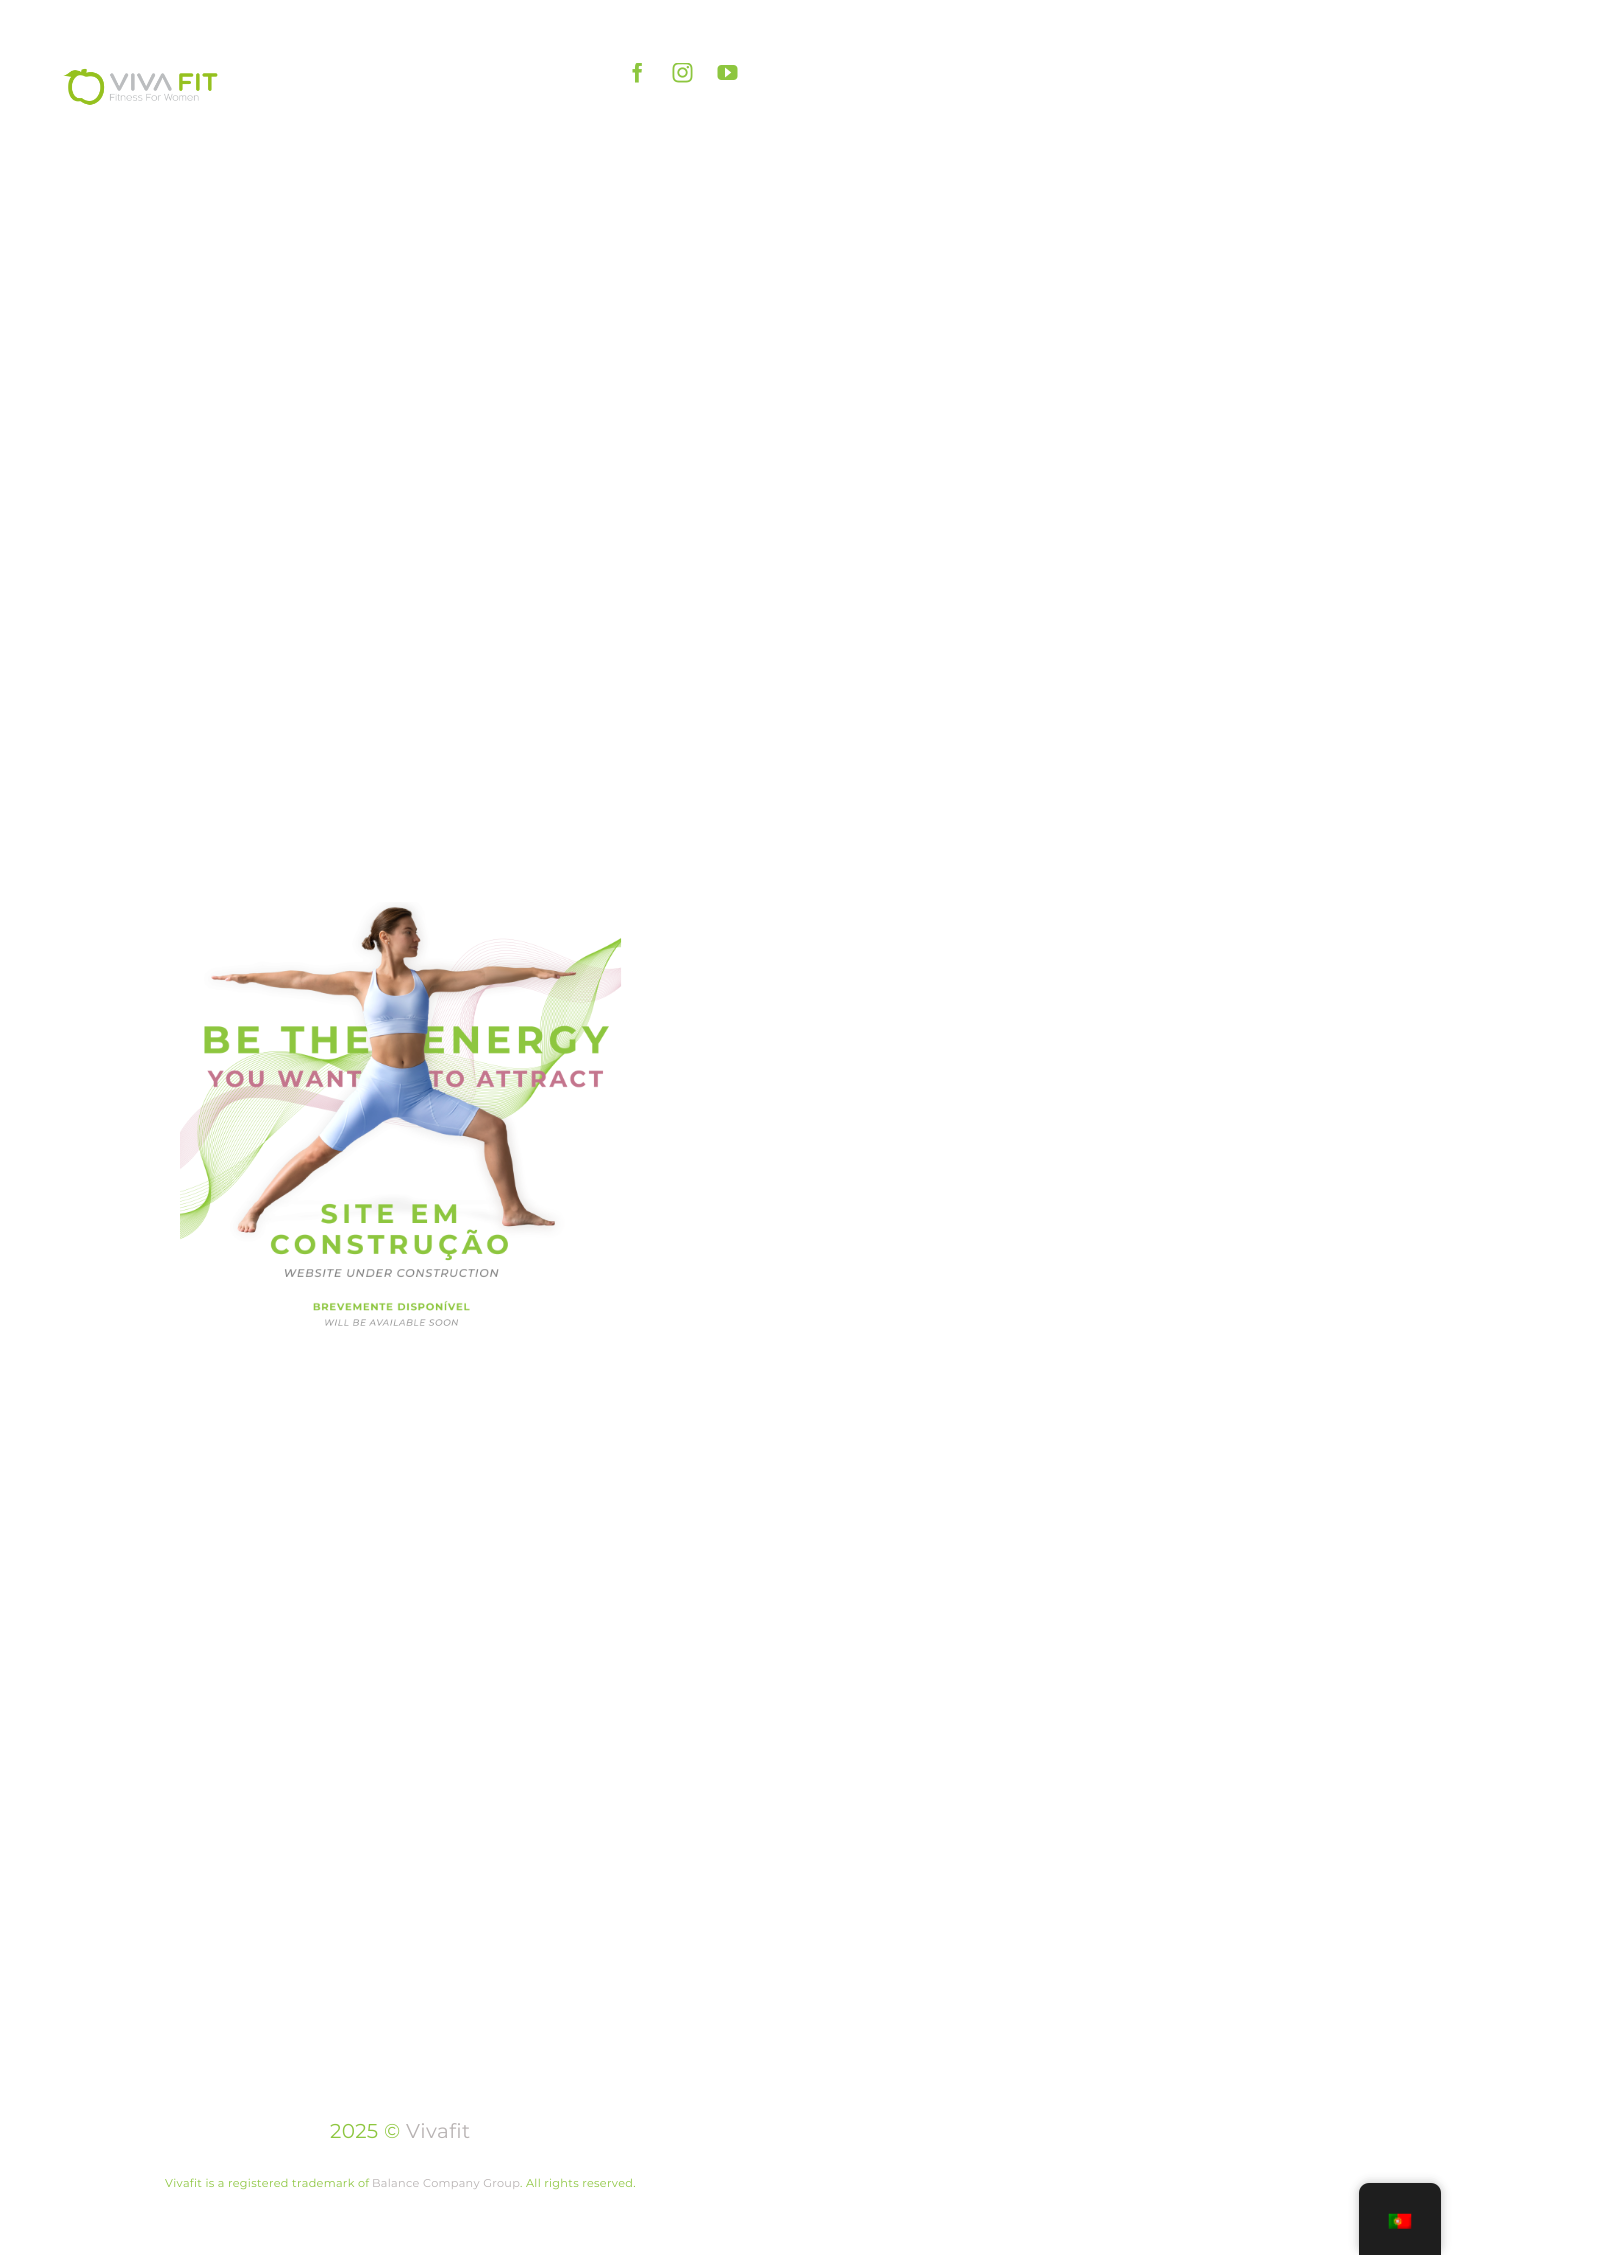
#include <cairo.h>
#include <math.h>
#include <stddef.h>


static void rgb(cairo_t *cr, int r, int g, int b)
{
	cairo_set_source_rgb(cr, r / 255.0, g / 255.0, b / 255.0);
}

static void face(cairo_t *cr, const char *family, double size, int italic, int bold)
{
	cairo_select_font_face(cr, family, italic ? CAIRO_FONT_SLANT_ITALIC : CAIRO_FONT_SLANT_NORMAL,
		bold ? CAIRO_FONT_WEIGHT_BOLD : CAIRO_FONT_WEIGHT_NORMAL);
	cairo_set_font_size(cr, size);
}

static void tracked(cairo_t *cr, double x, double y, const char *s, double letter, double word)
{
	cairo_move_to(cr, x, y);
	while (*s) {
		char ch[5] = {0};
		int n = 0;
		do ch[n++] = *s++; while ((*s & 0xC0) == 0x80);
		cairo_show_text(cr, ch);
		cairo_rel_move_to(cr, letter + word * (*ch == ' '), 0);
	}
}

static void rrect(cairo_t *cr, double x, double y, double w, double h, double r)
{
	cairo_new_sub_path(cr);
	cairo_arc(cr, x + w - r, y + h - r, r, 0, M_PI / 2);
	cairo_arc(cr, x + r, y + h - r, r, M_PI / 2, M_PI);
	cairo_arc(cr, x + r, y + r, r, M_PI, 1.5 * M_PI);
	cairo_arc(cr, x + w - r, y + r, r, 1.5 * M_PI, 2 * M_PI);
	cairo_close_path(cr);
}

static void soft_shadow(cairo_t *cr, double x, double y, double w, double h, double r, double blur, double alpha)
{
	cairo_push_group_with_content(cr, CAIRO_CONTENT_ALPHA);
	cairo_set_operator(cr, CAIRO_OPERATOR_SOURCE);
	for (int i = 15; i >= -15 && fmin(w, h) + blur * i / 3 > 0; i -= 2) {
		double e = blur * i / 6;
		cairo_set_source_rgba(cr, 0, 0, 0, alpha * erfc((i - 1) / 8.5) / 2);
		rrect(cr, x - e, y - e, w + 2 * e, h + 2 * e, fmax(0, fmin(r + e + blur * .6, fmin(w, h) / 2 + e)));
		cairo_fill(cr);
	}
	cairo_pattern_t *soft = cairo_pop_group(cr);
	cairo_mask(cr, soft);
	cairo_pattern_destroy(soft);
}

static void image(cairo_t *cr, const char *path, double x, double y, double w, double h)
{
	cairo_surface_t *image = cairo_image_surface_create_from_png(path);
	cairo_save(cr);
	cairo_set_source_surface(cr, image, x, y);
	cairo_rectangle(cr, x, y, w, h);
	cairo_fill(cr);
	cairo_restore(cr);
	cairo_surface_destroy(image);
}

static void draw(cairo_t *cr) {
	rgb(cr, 255, 255, 255);
	cairo_paint(cr);
	image(cr, "image0.png", 63, 68, 155, 37);
	image(cr, "image1.png", 632, 63, 10, 20);
	image(cr, "image2.png", 672, 63, 21, 20);
	image(cr, "image3.png", 717, 65, 21, 15);
	image(cr, "image4.png", 180, 902, 442, 424);
	face(cr, "Montserrat", 20, 0, 0);
	rgb(cr, 141, 198, 63);
	tracked(cr, 330, 2138, "2025 ©", 0.3, 0);
	rgb(cr, 183, 178, 178);
	tracked(cr, 406, 2138, "Vivafit", 0.3, 0);
	face(cr, "Montserrat", 11.25, 0, 0);
	rgb(cr, 141, 198, 63);
	tracked(cr, 165, 2187, "Vivafit is a registered trademark of", 0.3, 0);
	rgb(cr, 183, 178, 178);
	tracked(cr, 372, 2187, "Balance Company Group", 0.3, 0);
	rgb(cr, 141, 198, 63);
	tracked(cr, 520, 2187, ". All rights reserved.", 0.3, 0);
	rgb(cr, 0, 0, 0);
	soft_shadow(cr, 1359, 2183, 82, 72, 10, 5, 0.25);
	rgb(cr, 30, 30, 30);
	cairo_new_path(cr);
	cairo_move_to(cr, 1369, 2183);
	cairo_line_to(cr, 1431, 2183);
	cairo_curve_to(cr, 1436.5, 2183, 1441, 2187.5, 1441, 2193);
	cairo_line_to(cr, 1441, 2255);
	cairo_line_to(cr, 1359, 2255);
	cairo_line_to(cr, 1359, 2193);
	cairo_curve_to(cr, 1359, 2187.5, 1363.5, 2183, 1369, 2183);
	cairo_close_path(cr);
	cairo_fill(cr);
	image(cr, "image5.png", 1388, 2213, 24, 16);
}

int main(void) {
	cairo_surface_t *surface = cairo_image_surface_create(CAIRO_FORMAT_RGB24, 1601, 2255);
	cairo_t *cr = cairo_create(surface);
	cairo_font_options_t *options = cairo_font_options_create();
	cairo_font_options_set_hint_metrics(options, CAIRO_HINT_METRICS_OFF);
	cairo_font_options_set_hint_style(options, CAIRO_HINT_STYLE_NONE);
	cairo_set_font_options(cr, options);
	cairo_set_miter_limit(cr, 4);
	draw(cr);
	cairo_surface_write_to_png(surface, "render.png");
	cairo_font_options_destroy(options);
	cairo_destroy(cr);
	cairo_surface_destroy(surface);
	return 0;
}
